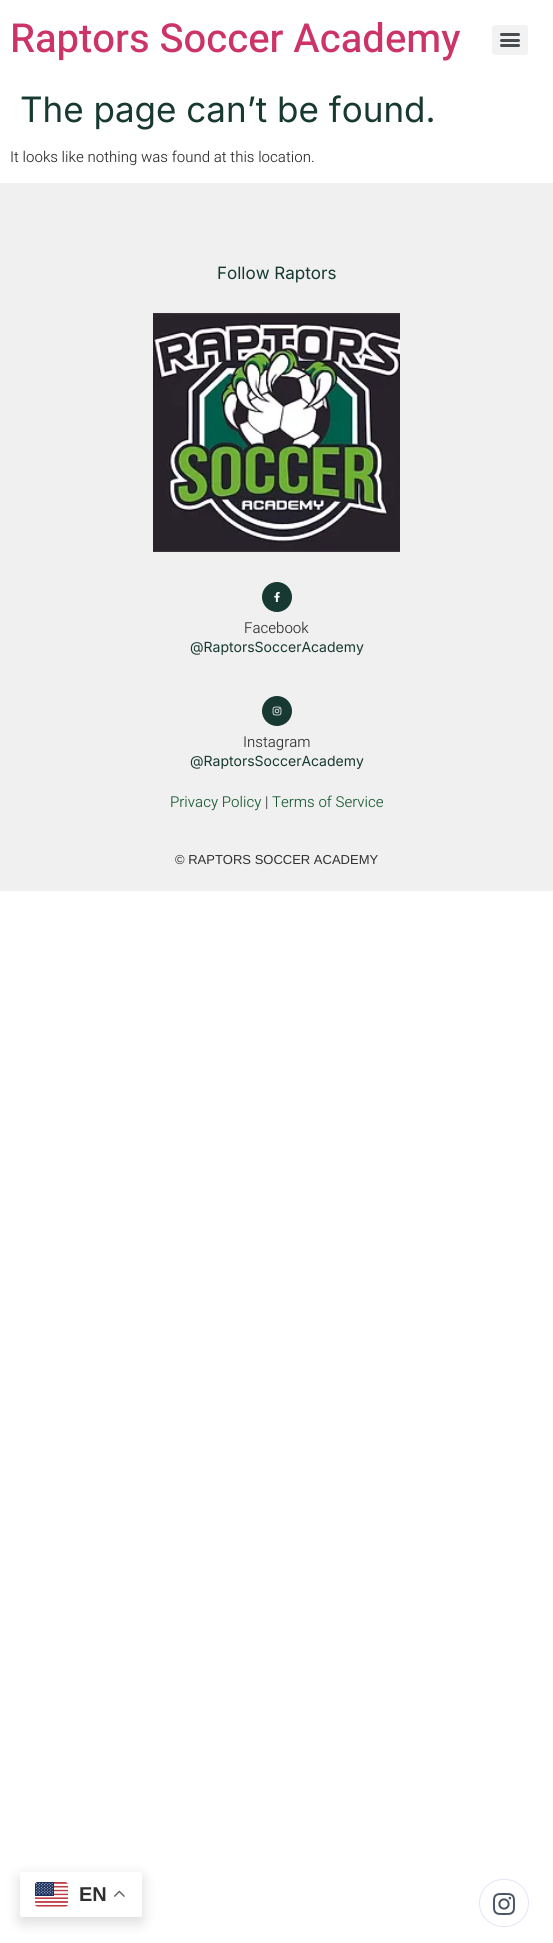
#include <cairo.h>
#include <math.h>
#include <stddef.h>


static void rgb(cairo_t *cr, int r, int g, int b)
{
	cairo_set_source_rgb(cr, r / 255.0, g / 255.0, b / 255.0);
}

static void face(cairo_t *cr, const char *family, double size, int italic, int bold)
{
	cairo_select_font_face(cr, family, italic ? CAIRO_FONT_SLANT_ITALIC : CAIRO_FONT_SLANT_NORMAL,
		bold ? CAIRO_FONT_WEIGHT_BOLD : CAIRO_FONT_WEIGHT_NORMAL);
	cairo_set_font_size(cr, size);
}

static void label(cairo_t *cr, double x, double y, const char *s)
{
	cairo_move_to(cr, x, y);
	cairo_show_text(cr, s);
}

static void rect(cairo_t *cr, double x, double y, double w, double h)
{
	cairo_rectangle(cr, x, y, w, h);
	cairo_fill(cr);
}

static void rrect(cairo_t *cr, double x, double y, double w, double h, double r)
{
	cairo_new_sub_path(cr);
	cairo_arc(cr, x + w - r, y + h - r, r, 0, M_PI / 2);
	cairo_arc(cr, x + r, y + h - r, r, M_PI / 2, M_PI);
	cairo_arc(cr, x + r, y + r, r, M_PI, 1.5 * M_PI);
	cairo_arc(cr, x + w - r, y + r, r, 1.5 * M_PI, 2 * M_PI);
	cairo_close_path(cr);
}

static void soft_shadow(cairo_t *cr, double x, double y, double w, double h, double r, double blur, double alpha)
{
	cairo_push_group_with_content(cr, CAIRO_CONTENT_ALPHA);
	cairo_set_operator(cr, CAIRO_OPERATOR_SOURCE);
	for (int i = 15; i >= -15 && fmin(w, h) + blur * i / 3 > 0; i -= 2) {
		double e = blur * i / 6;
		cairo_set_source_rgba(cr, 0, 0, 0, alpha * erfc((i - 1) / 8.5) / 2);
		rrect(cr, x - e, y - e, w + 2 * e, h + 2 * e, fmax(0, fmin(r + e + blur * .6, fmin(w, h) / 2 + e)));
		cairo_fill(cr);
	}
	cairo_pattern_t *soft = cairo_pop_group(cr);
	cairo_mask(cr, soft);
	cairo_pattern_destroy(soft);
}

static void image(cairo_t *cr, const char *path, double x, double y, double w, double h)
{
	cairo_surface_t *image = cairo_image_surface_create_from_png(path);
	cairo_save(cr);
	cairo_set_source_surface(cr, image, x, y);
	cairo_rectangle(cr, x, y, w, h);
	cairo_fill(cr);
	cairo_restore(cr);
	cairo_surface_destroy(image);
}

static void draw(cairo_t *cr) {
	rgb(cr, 255, 255, 255);
	cairo_paint(cr);
	face(cr, "Heebo Medium", 40, 0, 0);
	rgb(cr, 204, 51, 102);
	label(cr, 10, 52, "Raptors Soccer Academy");
	rgb(cr, 242, 242, 242);
	rrect(cr, 492, 25, 36, 30, 3);
	cairo_fill(cr);
	rgb(cr, 73, 76, 79);
	rrect(cr, 500, 39, 20, 3, 1.5);
	cairo_fill(cr);
	rrect(cr, 500, 33, 20, 3, 1.5);
	cairo_fill(cr);
	rrect(cr, 500, 44, 20, 3, 1.5);
	cairo_fill(cr);
	face(cr, "Inter", 35, 0, 0);
	rgb(cr, 23, 57, 49);
	label(cr, 20, 122, "The page can’t be found.");
	face(cr, "Heebo Light", 15, 0, 0);
	rgb(cr, 47, 47, 47);
	label(cr, 10, 162, "It looks like nothing was found at this location.");
	rgb(cr, 240, 240, 240);
	rect(cr, 0, 183, 553, 708);
	face(cr, "Inter", 17, 0, 0);
	rgb(cr, 23, 57, 49);
	label(cr, 217, 279, "Follow Raptors");
	image(cr, "image0.png", 153, 313, 247, 239);
	cairo_arc(cr, 277, 597, 15, 0, 2 * M_PI);
	cairo_fill(cr);
	image(cr, "image1.png", 274, 592, 6, 10);
	face(cr, "Heebo Light", 15, 0, 0);
	rgb(cr, 47, 47, 47);
	label(cr, 244, 633, "Facebook");
	face(cr, "Inter", 14, 0, 0);
	rgb(cr, 23, 57, 49);
	label(cr, 190, 652, "@RaptorsSoccerAcademy");
	cairo_new_path(cr);
	cairo_arc(cr, 277, 711, 15, 0, 2 * M_PI);
	cairo_fill(cr);
	image(cr, "image2.png", 272, 706, 10, 10);
	face(cr, "Heebo Light", 15, 0, 0);
	rgb(cr, 47, 47, 47);
	label(cr, 243, 747, "Instagram");
	face(cr, "Inter", 14, 0, 0);
	rgb(cr, 23, 57, 49);
	label(cr, 190, 766, "@RaptorsSoccerAcademy");
	face(cr, "Heebo Light", 15, 0, 0);
	rgb(cr, 24, 90, 53);
	label(cr, 170, 807, "Privacy Policy");
	rgb(cr, 47, 47, 47);
	label(cr, 265, 807, "|");
	rgb(cr, 24, 90, 53);
	label(cr, 272, 807, "Terms of Service");
	face(cr, "Liberation Sans", 13, 0, 0);
	rgb(cr, 47, 47, 47);
	label(cr, 175, 864, "© RAPTORS SOCCER ACADEMY");
	rgb(cr, 0, 0, 0);
	soft_shadow(cr, 20, 1877, 122, 45, 2, 7.5, 0.15);
	rgb(cr, 255, 255, 255);
	rrect(cr, 20, 1872, 122, 45, 2);
	cairo_fill(cr);
	image(cr, "image3.png", 35, 1882, 33, 25);
	face(cr, "Liberation Sans", 20, 0, 1);
	rgb(cr, 47, 47, 47);
	label(cr, 79, 1901, "EN");
	image(cr, "image4.png", 114, 1890, 11, 7);
	rrect(cr, 479.5, 1879.5, 49, 47, 23.5);
	rgb(cr, 227, 229, 245);
	cairo_set_line_width(cr, 1);
	cairo_stroke(cr);
	image(cr, "image5.png", 493, 1893, 22, 22);
}

int main(void) {
	cairo_surface_t *surface = cairo_image_surface_create(CAIRO_FORMAT_RGB24, 553, 1943);
	cairo_t *cr = cairo_create(surface);
	cairo_font_options_t *options = cairo_font_options_create();
	cairo_font_options_set_hint_metrics(options, CAIRO_HINT_METRICS_OFF);
	cairo_font_options_set_hint_style(options, CAIRO_HINT_STYLE_NONE);
	cairo_set_font_options(cr, options);
	cairo_set_miter_limit(cr, 4);
	draw(cr);
	cairo_surface_write_to_png(surface, "render.png");
	cairo_font_options_destroy(options);
	cairo_destroy(cr);
	cairo_surface_destroy(surface);
	return 0;
}
